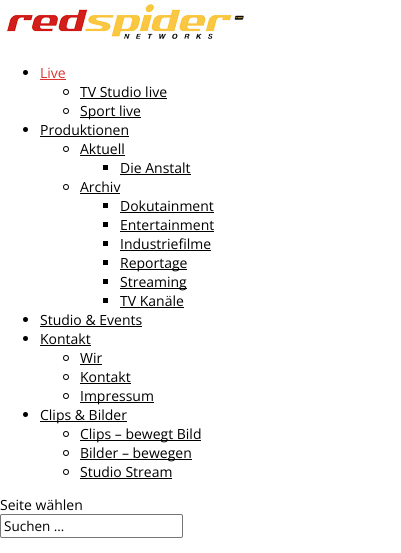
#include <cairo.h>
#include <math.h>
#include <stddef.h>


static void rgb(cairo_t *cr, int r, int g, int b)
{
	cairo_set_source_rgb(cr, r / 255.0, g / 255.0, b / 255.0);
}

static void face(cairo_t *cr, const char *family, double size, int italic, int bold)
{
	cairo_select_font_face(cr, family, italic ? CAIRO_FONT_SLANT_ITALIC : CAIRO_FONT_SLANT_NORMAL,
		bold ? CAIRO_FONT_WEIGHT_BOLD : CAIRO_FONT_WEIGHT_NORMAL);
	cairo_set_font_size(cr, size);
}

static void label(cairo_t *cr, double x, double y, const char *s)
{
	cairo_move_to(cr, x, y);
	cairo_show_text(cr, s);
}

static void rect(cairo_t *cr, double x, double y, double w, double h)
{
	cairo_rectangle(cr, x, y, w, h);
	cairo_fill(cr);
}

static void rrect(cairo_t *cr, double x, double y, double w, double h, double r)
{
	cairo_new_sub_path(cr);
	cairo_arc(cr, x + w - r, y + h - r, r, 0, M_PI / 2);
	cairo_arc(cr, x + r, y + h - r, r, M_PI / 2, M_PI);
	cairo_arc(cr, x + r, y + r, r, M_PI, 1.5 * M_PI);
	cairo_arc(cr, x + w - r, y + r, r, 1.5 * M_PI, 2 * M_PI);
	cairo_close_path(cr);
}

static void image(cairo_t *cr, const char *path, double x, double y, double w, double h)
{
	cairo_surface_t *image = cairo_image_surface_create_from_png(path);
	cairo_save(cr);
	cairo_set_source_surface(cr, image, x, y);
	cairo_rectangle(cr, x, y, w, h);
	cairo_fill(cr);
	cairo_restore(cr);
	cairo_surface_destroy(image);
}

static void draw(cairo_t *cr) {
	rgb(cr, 255, 255, 255);
	cairo_paint(cr);
	image(cr, "image0.png", 0, 0, 248, 40);
	rgb(cr, 0, 0, 0);
	cairo_arc(cr, 25.5, 72.5, 2.5, 0, 2 * M_PI);
	cairo_fill(cr);
	face(cr, "Open Sans", 14, 0, 0);
	rgb(cr, 221, 51, 51);
	label(cr, 40, 78, "Live");
	rect(cr, 40, 79, 26, 1);
	cairo_new_path(cr);
	cairo_arc(cr, 66, 92, 2.5, 0, 2 * M_PI);
	rgb(cr, 0, 0, 0);
	cairo_set_line_width(cr, 1);
	cairo_stroke(cr);
	label(cr, 80, 97, "TV Studio live");
	rect(cr, 80, 98, 87, 1);
	cairo_new_path(cr);
	cairo_arc(cr, 66, 111, 2.5, 0, 2 * M_PI);
	cairo_stroke(cr);
	rect(cr, 80, 117, 61, 1);
	label(cr, 80, 116, "Sport live");
	cairo_new_path(cr);
	cairo_arc(cr, 25.5, 129.5, 2.5, 0, 2 * M_PI);
	cairo_fill(cr);
	label(cr, 40, 135, "Produktionen");
	rect(cr, 40, 136, 89, 1);
	cairo_new_path(cr);
	cairo_arc(cr, 66, 149, 2.5, 0, 2 * M_PI);
	cairo_stroke(cr);
	label(cr, 80, 154, "Aktuell");
	rect(cr, 80, 155, 45, 1);
	rect(cr, 103, 165, 5, 5);
	label(cr, 120, 173, "Die Anstalt");
	rect(cr, 120, 174, 71, 1);
	cairo_new_path(cr);
	cairo_arc(cr, 66, 187, 2.5, 0, 2 * M_PI);
	cairo_stroke(cr);
	label(cr, 80, 192, "Archiv");
	rect(cr, 80, 193, 40, 1);
	rect(cr, 103, 203, 5, 5);
	label(cr, 120, 211, "Dokutainment");
	rect(cr, 120, 212, 94, 1);
	rect(cr, 103, 222, 5, 5);
	label(cr, 120, 230, "Entertainment");
	rect(cr, 120, 231, 94, 1);
	rect(cr, 103, 241, 5, 5);
	label(cr, 120, 249, "Industriefilme");
	rect(cr, 120, 250, 91, 1);
	rect(cr, 103, 260, 5, 5);
	rect(cr, 120, 269, 67, 1);
	label(cr, 120, 268, "Reportage");
	rect(cr, 103, 279, 5, 5);
	rect(cr, 120, 288, 67, 1);
	label(cr, 120, 287, "Streaming");
	rect(cr, 103, 298, 5, 5);
	label(cr, 120, 306, "TV Kanäle");
	rect(cr, 120, 307, 64, 1);
	cairo_new_path(cr);
	cairo_arc(cr, 25.5, 319.5, 2.5, 0, 2 * M_PI);
	cairo_fill(cr);
	label(cr, 40, 325, "Studio & Events");
	rect(cr, 40, 326, 102, 1);
	cairo_new_path(cr);
	cairo_arc(cr, 25.5, 338.5, 2.5, 0, 2 * M_PI);
	cairo_fill(cr);
	label(cr, 40, 344, "Kontakt");
	rect(cr, 40, 345, 51, 1);
	cairo_new_path(cr);
	cairo_arc(cr, 66, 358, 2.5, 0, 2 * M_PI);
	cairo_stroke(cr);
	label(cr, 80, 363, "Wir");
	rect(cr, 80, 364, 22, 1);
	cairo_new_path(cr);
	cairo_arc(cr, 66, 377, 2.5, 0, 2 * M_PI);
	cairo_stroke(cr);
	label(cr, 80, 382, "Kontakt");
	rect(cr, 80, 383, 51, 1);
	cairo_new_path(cr);
	cairo_arc(cr, 66, 396, 2.5, 0, 2 * M_PI);
	cairo_stroke(cr);
	rect(cr, 80, 402, 74, 1);
	label(cr, 80, 401, "Impressum");
	cairo_new_path(cr);
	cairo_arc(cr, 25.5, 414.5, 2.5, 0, 2 * M_PI);
	cairo_fill(cr);
	rect(cr, 40, 421, 87, 1);
	label(cr, 40, 420, "Clips & Bilder");
	cairo_new_path(cr);
	cairo_arc(cr, 66, 434, 2.5, 0, 2 * M_PI);
	cairo_stroke(cr);
	rect(cr, 80, 440, 121, 1);
	label(cr, 80, 439, "Clips – bewegt Bild");
	cairo_new_path(cr);
	cairo_arc(cr, 66, 453, 2.5, 0, 2 * M_PI);
	cairo_stroke(cr);
	rect(cr, 80, 459, 112, 1);
	label(cr, 80, 458, "Bilder – bewegen");
	cairo_new_path(cr);
	cairo_arc(cr, 66, 472, 2.5, 0, 2 * M_PI);
	cairo_stroke(cr);
	label(cr, 80, 477, "Studio Stream");
	rect(cr, 80, 478, 92, 1);
	label(cr, 0, 510, "Seite wählen");
	rrect(cr, 0.5, 514.5, 182, 23, 1.5);
	rgb(cr, 118, 118, 118);
	cairo_stroke(cr);
	face(cr, "Open Sans", 13.5, 0, 0);
	rgb(cr, 0, 0, 0);
	label(cr, 4, 531, "Suchen …");
}

int main(void) {
	cairo_surface_t *surface = cairo_image_surface_create(CAIRO_FORMAT_RGB24, 401, 553);
	cairo_t *cr = cairo_create(surface);
	cairo_font_options_t *options = cairo_font_options_create();
	cairo_font_options_set_hint_metrics(options, CAIRO_HINT_METRICS_OFF);
	cairo_font_options_set_hint_style(options, CAIRO_HINT_STYLE_NONE);
	cairo_set_font_options(cr, options);
	cairo_set_miter_limit(cr, 4);
	draw(cr);
	cairo_surface_write_to_png(surface, "render.png");
	cairo_font_options_destroy(options);
	cairo_destroy(cr);
	cairo_surface_destroy(surface);
	return 0;
}
